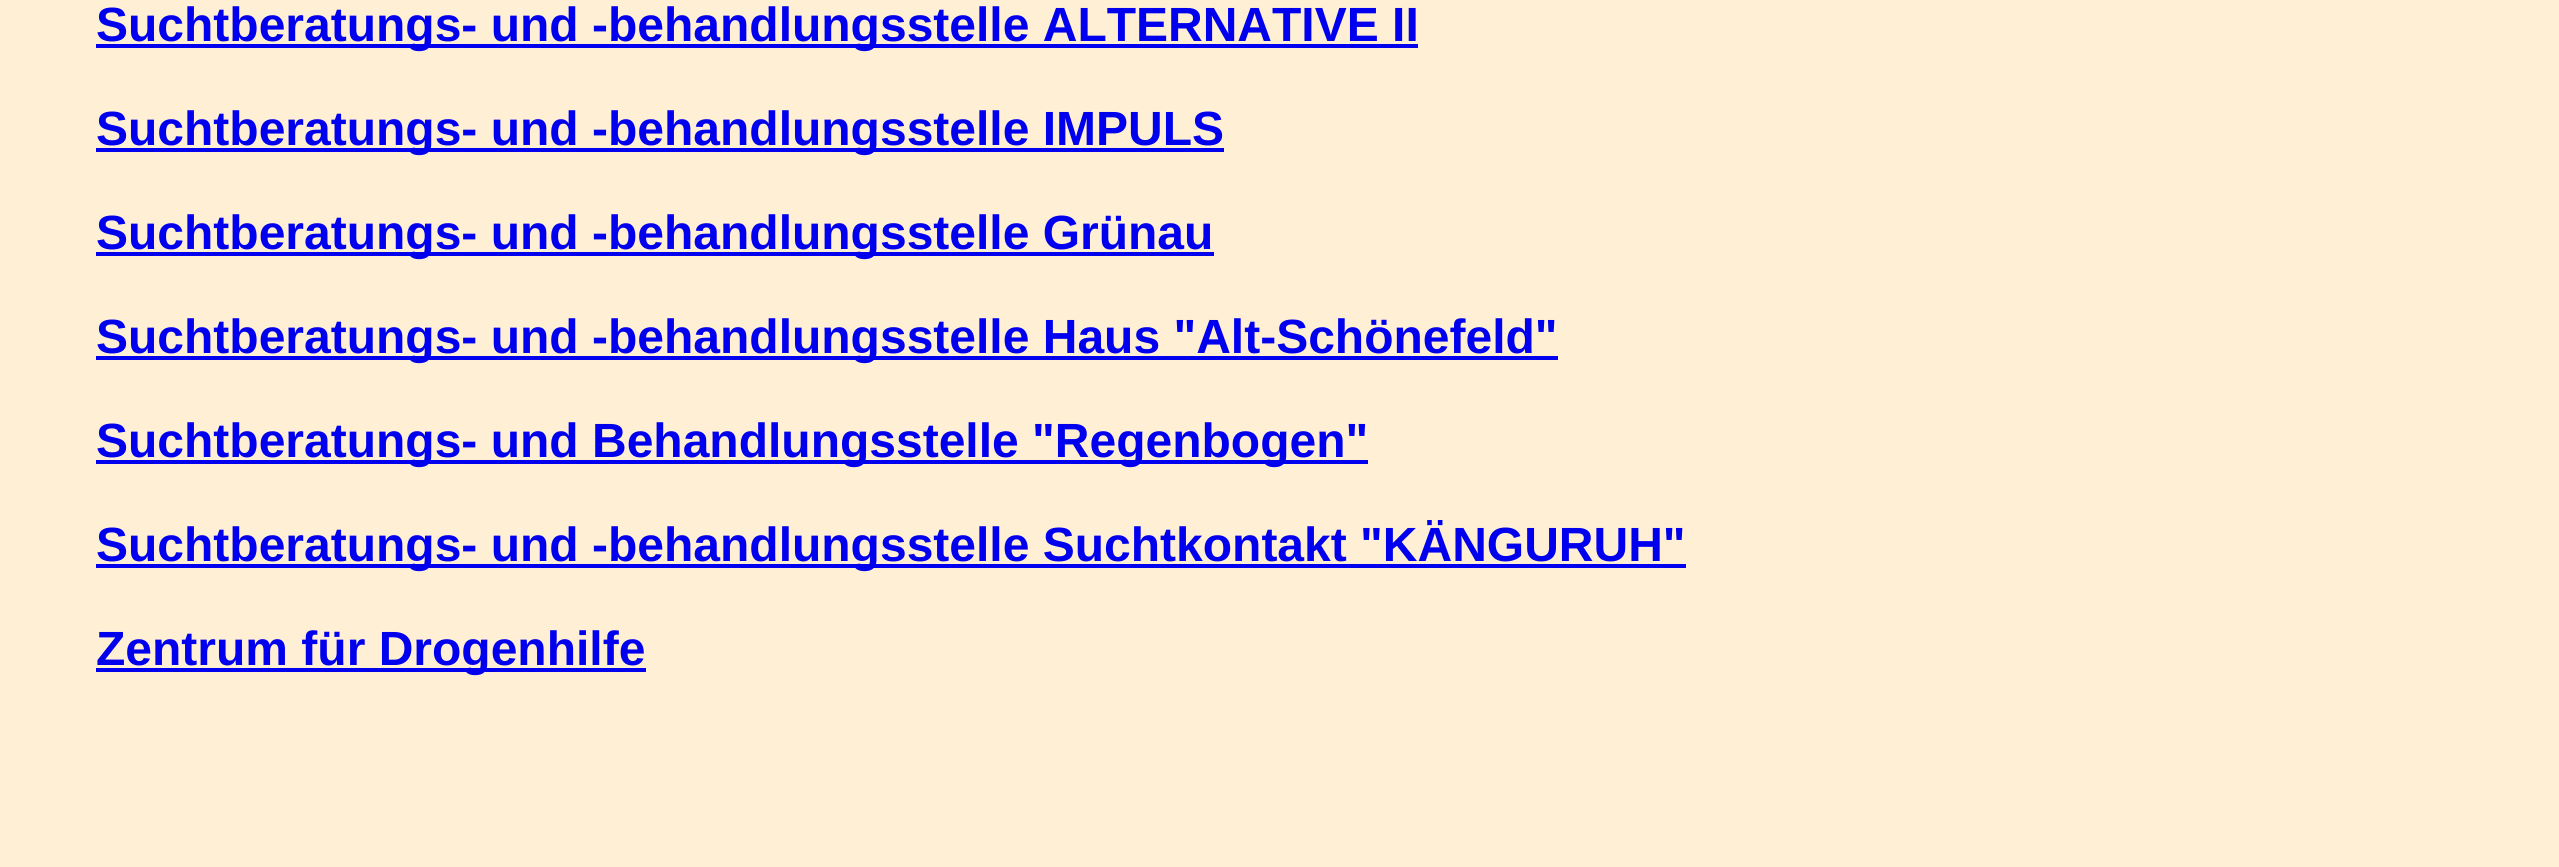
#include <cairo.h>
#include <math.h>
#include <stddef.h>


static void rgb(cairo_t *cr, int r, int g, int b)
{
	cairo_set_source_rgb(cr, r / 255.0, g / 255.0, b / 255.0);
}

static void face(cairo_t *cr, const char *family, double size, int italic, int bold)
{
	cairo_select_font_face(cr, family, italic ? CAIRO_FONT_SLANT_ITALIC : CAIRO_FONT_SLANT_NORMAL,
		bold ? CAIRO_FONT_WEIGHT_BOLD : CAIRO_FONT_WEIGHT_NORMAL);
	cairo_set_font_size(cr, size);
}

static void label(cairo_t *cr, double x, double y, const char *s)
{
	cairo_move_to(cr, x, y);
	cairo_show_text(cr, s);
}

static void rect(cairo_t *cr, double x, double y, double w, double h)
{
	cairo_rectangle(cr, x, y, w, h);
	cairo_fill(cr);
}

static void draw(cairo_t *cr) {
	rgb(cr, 255, 239, 213);
	cairo_paint(cr);
	rgb(cr, 0, 0, 238);
	rect(cr, 96, 44, 1322, 4);
	face(cr, "Liberation Sans", 48, 0, 1);
	label(cr, 96, 41, "Suchtberatungs- und -behandlungsstelle ALTERNATIVE II");
	rect(cr, 96, 148, 1128, 4);
	label(cr, 96, 145, "Suchtberatungs- und -behandlungsstelle IMPULS");
	rect(cr, 96, 252, 1118, 4);
	label(cr, 96, 249, "Suchtberatungs- und -behandlungsstelle Grünau");
	rect(cr, 96, 356, 1462, 4);
	label(cr, 96, 353, "Suchtberatungs- und -behandlungsstelle Haus \"Alt-Schönefeld\"");
	rect(cr, 96, 460, 1272, 4);
	label(cr, 96, 457, "Suchtberatungs- und Behandlungsstelle \"Regenbogen\"");
	rect(cr, 96, 564, 1590, 4);
	label(cr, 96, 561, "Suchtberatungs- und -behandlungsstelle Suchtkontakt \"KÄNGURUH\"");
	rect(cr, 96, 668, 550, 4);
	label(cr, 96, 665, "Zentrum für Drogenhilfe");
}

int main(void) {
	cairo_surface_t *surface = cairo_image_surface_create(CAIRO_FORMAT_RGB24, 2559, 867);
	cairo_t *cr = cairo_create(surface);
	cairo_font_options_t *options = cairo_font_options_create();
	cairo_font_options_set_hint_metrics(options, CAIRO_HINT_METRICS_OFF);
	cairo_font_options_set_hint_style(options, CAIRO_HINT_STYLE_NONE);
	cairo_set_font_options(cr, options);
	cairo_set_miter_limit(cr, 4);
	draw(cr);
	cairo_surface_write_to_png(surface, "render.png");
	cairo_font_options_destroy(options);
	cairo_destroy(cr);
	cairo_surface_destroy(surface);
	return 0;
}
